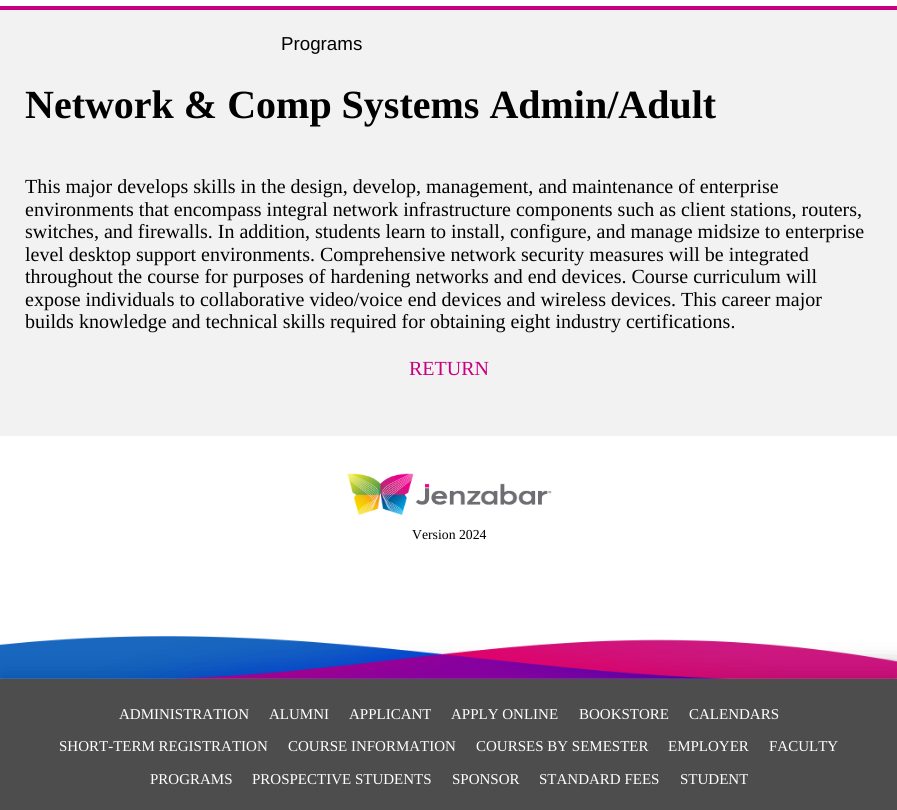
#include <cairo.h>
#include <math.h>
#include <stddef.h>


static void rgb(cairo_t *cr, int r, int g, int b)
{
	cairo_set_source_rgb(cr, r / 255.0, g / 255.0, b / 255.0);
}

static void face(cairo_t *cr, const char *family, double size, int italic, int bold)
{
	cairo_select_font_face(cr, family, italic ? CAIRO_FONT_SLANT_ITALIC : CAIRO_FONT_SLANT_NORMAL,
		bold ? CAIRO_FONT_WEIGHT_BOLD : CAIRO_FONT_WEIGHT_NORMAL);
	cairo_set_font_size(cr, size);
}

static void label(cairo_t *cr, double x, double y, const char *s)
{
	cairo_move_to(cr, x, y);
	cairo_show_text(cr, s);
}

static void rect(cairo_t *cr, double x, double y, double w, double h)
{
	cairo_rectangle(cr, x, y, w, h);
	cairo_fill(cr);
}

static void rrect(cairo_t *cr, double x, double y, double w, double h, double r)
{
	cairo_new_sub_path(cr);
	cairo_arc(cr, x + w - r, y + h - r, r, 0, M_PI / 2);
	cairo_arc(cr, x + r, y + h - r, r, M_PI / 2, M_PI);
	cairo_arc(cr, x + r, y + r, r, M_PI, 1.5 * M_PI);
	cairo_arc(cr, x + w - r, y + r, r, 1.5 * M_PI, 2 * M_PI);
	cairo_close_path(cr);
}

static void soft_shadow(cairo_t *cr, double x, double y, double w, double h, double r, double blur, double alpha)
{
	cairo_push_group_with_content(cr, CAIRO_CONTENT_ALPHA);
	cairo_set_operator(cr, CAIRO_OPERATOR_SOURCE);
	for (int i = 15; i >= -15 && fmin(w, h) + blur * i / 3 > 0; i -= 2) {
		double e = blur * i / 6;
		cairo_set_source_rgba(cr, 0, 0, 0, alpha * erfc((i - 1) / 8.5) / 2);
		rrect(cr, x - e, y - e, w + 2 * e, h + 2 * e, fmax(0, fmin(r + e + blur * .6, fmin(w, h) / 2 + e)));
		cairo_fill(cr);
	}
	cairo_pattern_t *soft = cairo_pop_group(cr);
	cairo_mask(cr, soft);
	cairo_pattern_destroy(soft);
}

static void image(cairo_t *cr, const char *path, double x, double y, double w, double h)
{
	cairo_surface_t *image = cairo_image_surface_create_from_png(path);
	cairo_save(cr);
	cairo_set_source_surface(cr, image, x, y);
	cairo_rectangle(cr, x, y, w, h);
	cairo_fill(cr);
	cairo_restore(cr);
	cairo_surface_destroy(image);
}

static void draw(cairo_t *cr) {
	rgb(cr, 255, 255, 255);
	cairo_paint(cr);
	rgb(cr, 198, 0, 126);
	rect(cr, 0, 6, 897, 4);
	rgb(cr, 242, 242, 242);
	rect(cr, 0, 10, 897, 426);
	face(cr, "Liberation Sans", 18.75, 0, 0);
	rgb(cr, 0, 0, 0);
	label(cr, 281, 50, "Programs");
	face(cr, "Liberation Serif", 40, 0, 1);
	label(cr, 25, 118, "Network & Comp Systems Admin/Adult");
	face(cr, "Liberation Serif", 20, 0, 0);
	label(cr, 25, 193, "This major develops skills in the design, develop, management, and maintenance of enterprise");
	label(cr, 25, 216, "environments that encompass integral network infrastructure components such as client stations, routers,");
	label(cr, 25, 238, "switches, and firewalls. In addition, students learn to install, configure, and manage midsize to enterprise");
	label(cr, 25, 261, "level desktop support environments. Comprehensive network security measures will be integrated");
	label(cr, 25, 283, "throughout the course for purposes of hardening networks and end devices. Course curriculum will");
	label(cr, 25, 306, "expose individuals to collaborative video/voice end devices and wireless devices. This career major");
	label(cr, 25, 328, "builds knowledge and technical skills required for obtaining eight industry certifications.");
	rgb(cr, 198, 0, 126);
	label(cr, 409, 375, "RETURN");
	image(cr, "image0.png", 347, 473, 205, 42);
	face(cr, "Liberation Serif", 13.75, 0, 0);
	rgb(cr, 0, 0, 0);
	label(cr, 412, 539, "Version 2024");
	rgb(cr, 77, 77, 77);
	soft_shadow(cr, 0, 673, 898, 131, 0, 12.5, 1);
	image(cr, "image1.png", 0, 636, 897, 43);
	rgb(cr, 77, 77, 77);
	rect(cr, 0, 679, 897, 131);
	face(cr, "Liberation Serif", 15, 0, 0);
	rgb(cr, 255, 255, 255);
	label(cr, 119, 719, "ADMINISTRATION");
	label(cr, 269, 719, "ALUMNI");
	label(cr, 349, 719, "APPLICANT");
	label(cr, 451, 719, "APPLY ONLINE");
	label(cr, 579, 719, "BOOKSTORE");
	label(cr, 689, 719, "CALENDARS");
	label(cr, 59, 751, "SHORT-TERM REGISTRATION");
	label(cr, 288, 751, "COURSE INFORMATION");
	label(cr, 476, 751, "COURSES BY SEMESTER");
	label(cr, 668, 751, "EMPLOYER");
	label(cr, 769, 751, "FACULTY");
	label(cr, 150, 784, "PROGRAMS");
	label(cr, 252, 784, "PROSPECTIVE STUDENTS");
	label(cr, 452, 784, "SPONSOR");
	label(cr, 539, 784, "STANDARD FEES");
	label(cr, 680, 784, "STUDENT");
}

int main(void) {
	cairo_surface_t *surface = cairo_image_surface_create(CAIRO_FORMAT_RGB24, 897, 810);
	cairo_t *cr = cairo_create(surface);
	cairo_font_options_t *options = cairo_font_options_create();
	cairo_font_options_set_hint_metrics(options, CAIRO_HINT_METRICS_OFF);
	cairo_font_options_set_hint_style(options, CAIRO_HINT_STYLE_NONE);
	cairo_set_font_options(cr, options);
	cairo_set_miter_limit(cr, 4);
	draw(cr);
	cairo_surface_write_to_png(surface, "render.png");
	cairo_font_options_destroy(options);
	cairo_destroy(cr);
	cairo_surface_destroy(surface);
	return 0;
}
